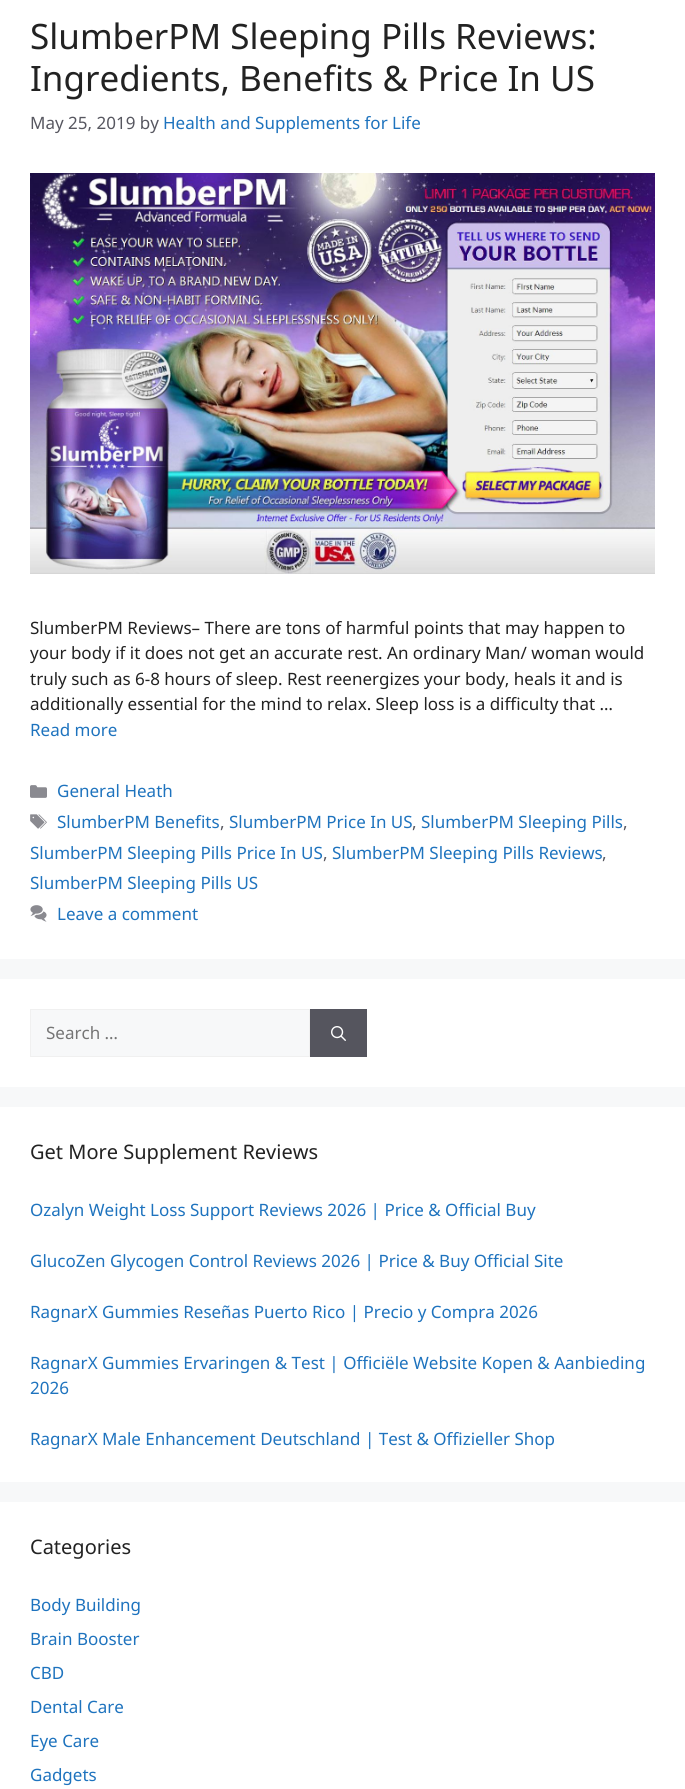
#include <cairo.h>
#include <math.h>
#include <stddef.h>


static void rgb(cairo_t *cr, int r, int g, int b)
{
	cairo_set_source_rgb(cr, r / 255.0, g / 255.0, b / 255.0);
}

static void face(cairo_t *cr, const char *family, double size, int italic, int bold)
{
	cairo_select_font_face(cr, family, italic ? CAIRO_FONT_SLANT_ITALIC : CAIRO_FONT_SLANT_NORMAL,
		bold ? CAIRO_FONT_WEIGHT_BOLD : CAIRO_FONT_WEIGHT_NORMAL);
	cairo_set_font_size(cr, size);
}

static void label(cairo_t *cr, double x, double y, const char *s)
{
	cairo_move_to(cr, x, y);
	cairo_show_text(cr, s);
}

static void rect(cairo_t *cr, double x, double y, double w, double h)
{
	cairo_rectangle(cr, x, y, w, h);
	cairo_fill(cr);
}

static void image(cairo_t *cr, const char *path, double x, double y, double w, double h)
{
	cairo_surface_t *image = cairo_image_surface_create_from_png(path);
	cairo_save(cr);
	cairo_set_source_surface(cr, image, x, y);
	cairo_rectangle(cr, x, y, w, h);
	cairo_fill(cr);
	cairo_restore(cr);
	cairo_surface_destroy(image);
}

static void draw(cairo_t *cr) {
	rgb(cr, 247, 248, 249);
	cairo_paint(cr);
	rgb(cr, 255, 255, 255);
	rect(cr, 0, 0, 685, 959);
	face(cr, "Noto Sans", 35, 0, 0);
	rgb(cr, 34, 34, 34);
	label(cr, 30, 49, "SlumberPM Sleeping Pills Reviews:");
	label(cr, 30, 91, "Ingredients, Benefits & Price In US");
	face(cr, "Noto Sans", 17, 0, 0);
	rgb(cr, 87, 87, 96);
	label(cr, 30, 129, "May 25, 2019 by");
	rgb(cr, 30, 115, 190);
	label(cr, 163, 129, "Health and Supplements for Life");
	image(cr, "image0.png", 30, 173, 625, 401);
	rgb(cr, 34, 34, 34);
	label(cr, 30, 634, "SlumberPM Reviews– There are tons of harmful points that may happen to");
	label(cr, 30, 659, "your body if it does not get an accurate rest. An ordinary Man/ woman would");
	label(cr, 30, 685, "truly such as 6-8 hours of sleep. Rest reenergizes your body, heals it and is");
	label(cr, 30, 710, "additionally essential for the mind to relax. Sleep loss is a difficulty that …");
	rgb(cr, 30, 115, 190);
	label(cr, 30, 736, "Read more");
	image(cr, "image1.png", 30, 785, 17, 13);
	label(cr, 57, 797, "General Heath");
	image(cr, "image2.png", 30, 814, 17, 15);
	label(cr, 57, 828, "SlumberPM Benefits");
	rgb(cr, 87, 87, 96);
	label(cr, 220, 828, ",");
	rgb(cr, 30, 115, 190);
	label(cr, 229, 828, "SlumberPM Price In US");
	rgb(cr, 87, 87, 96);
	label(cr, 412, 828, ",");
	rgb(cr, 30, 115, 190);
	label(cr, 421, 828, "SlumberPM Sleeping Pills");
	rgb(cr, 87, 87, 96);
	label(cr, 623, 828, ",");
	rgb(cr, 30, 115, 190);
	label(cr, 30, 859, "SlumberPM Sleeping Pills Price In US");
	rgb(cr, 87, 87, 96);
	label(cr, 323, 859, ",");
	rgb(cr, 30, 115, 190);
	label(cr, 332, 859, "SlumberPM Sleeping Pills Reviews");
	rgb(cr, 87, 87, 96);
	label(cr, 602, 859, ",");
	rgb(cr, 30, 115, 190);
	label(cr, 30, 889, "SlumberPM Sleeping Pills US");
	image(cr, "image3.png", 30, 905, 17, 17);
	label(cr, 57, 920, "Leave a comment");
	rgb(cr, 255, 255, 255);
	rect(cr, 0, 979, 685, 108);
	rgb(cr, 247, 248, 249);
	cairo_rectangle(cr, 30.5, 1009.5, 279, 47);
	cairo_fill_preserve(cr);
	rgb(cr, 240, 240, 240);
	cairo_set_line_width(cr, 1);
	cairo_stroke(cr);
	rgb(cr, 117, 117, 117);
	label(cr, 46, 1039, "Search …");
	rgb(cr, 85, 85, 94);
	rect(cr, 310, 1009, 57, 48);
	image(cr, "image4.png", 331, 1026, 15, 15);
	rgb(cr, 255, 255, 255);
	rect(cr, 0, 1107, 685, 375);
	face(cr, "Noto Sans", 20, 0, 0);
	rgb(cr, 34, 34, 34);
	label(cr, 30, 1159, "Get More Supplement Reviews");
	face(cr, "Noto Sans", 17, 0, 0);
	rgb(cr, 30, 115, 190);
	label(cr, 30, 1216, "Ozalyn Weight Loss Support Reviews 2026 | Price & Official Buy");
	label(cr, 30, 1267, "GlucoZen Glycogen Control Reviews 2026 | Price & Buy Official Site");
	label(cr, 30, 1318, "RagnarX Gummies Reseñas Puerto Rico | Precio y Compra 2026");
	label(cr, 30, 1369, "RagnarX Gummies Ervaringen & Test | Officiële Website Kopen & Aanbieding");
	label(cr, 30, 1394, "2026");
	label(cr, 30, 1445, "RagnarX Male Enhancement Deutschland | Test & Offizieller Shop");
	rgb(cr, 255, 255, 255);
	rect(cr, 0, 1502, 685, 287);
	face(cr, "Noto Sans", 20, 0, 0);
	rgb(cr, 34, 34, 34);
	label(cr, 30, 1554, "Categories");
	face(cr, "Noto Sans", 17, 0, 0);
	rgb(cr, 30, 115, 190);
	label(cr, 30, 1611, "Body Building");
	label(cr, 30, 1645, "Brain Booster");
	label(cr, 30, 1679, "CBD");
	label(cr, 30, 1713, "Dental Care");
	label(cr, 30, 1747, "Eye Care");
	label(cr, 30, 1781, "Gadgets");
}

int main(void) {
	cairo_surface_t *surface = cairo_image_surface_create(CAIRO_FORMAT_RGB24, 685, 1789);
	cairo_t *cr = cairo_create(surface);
	cairo_font_options_t *options = cairo_font_options_create();
	cairo_font_options_set_hint_metrics(options, CAIRO_HINT_METRICS_OFF);
	cairo_font_options_set_hint_style(options, CAIRO_HINT_STYLE_NONE);
	cairo_set_font_options(cr, options);
	cairo_set_miter_limit(cr, 4);
	draw(cr);
	cairo_surface_write_to_png(surface, "render.png");
	cairo_font_options_destroy(options);
	cairo_destroy(cr);
	cairo_surface_destroy(surface);
	return 0;
}
